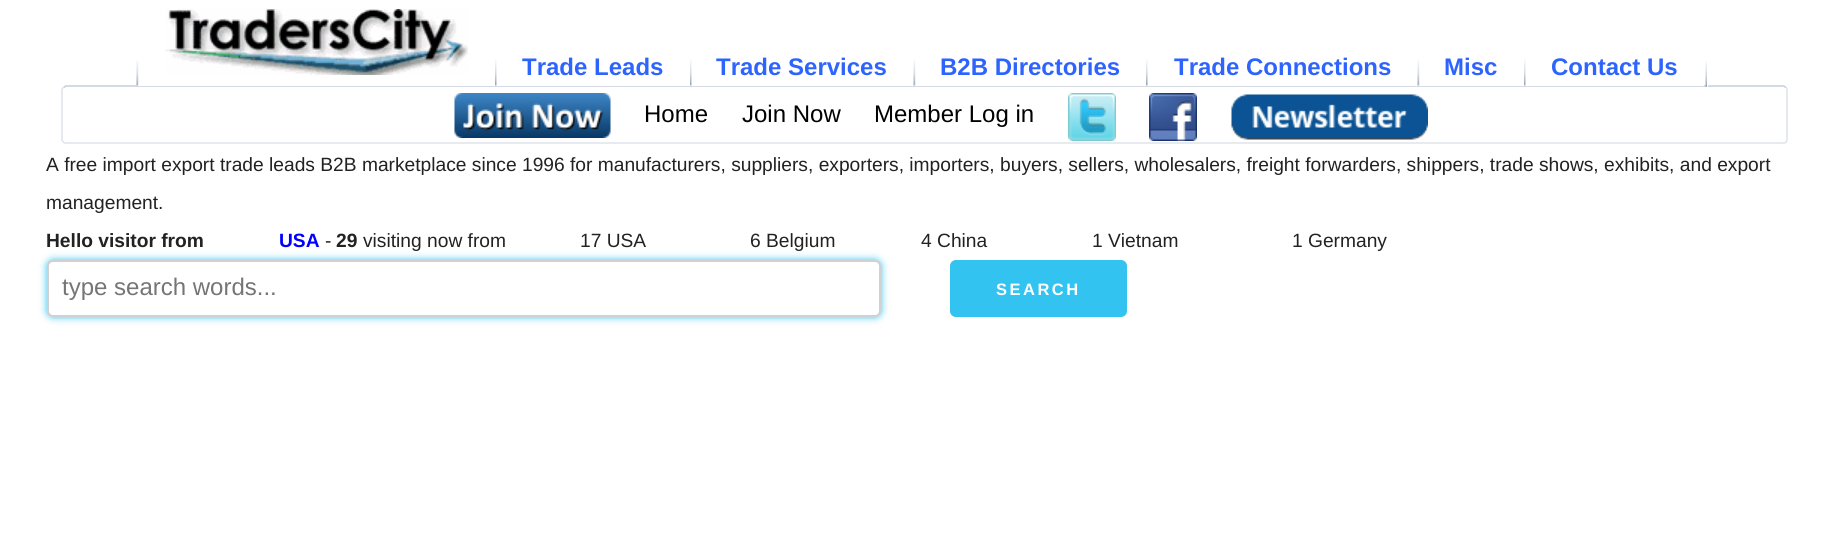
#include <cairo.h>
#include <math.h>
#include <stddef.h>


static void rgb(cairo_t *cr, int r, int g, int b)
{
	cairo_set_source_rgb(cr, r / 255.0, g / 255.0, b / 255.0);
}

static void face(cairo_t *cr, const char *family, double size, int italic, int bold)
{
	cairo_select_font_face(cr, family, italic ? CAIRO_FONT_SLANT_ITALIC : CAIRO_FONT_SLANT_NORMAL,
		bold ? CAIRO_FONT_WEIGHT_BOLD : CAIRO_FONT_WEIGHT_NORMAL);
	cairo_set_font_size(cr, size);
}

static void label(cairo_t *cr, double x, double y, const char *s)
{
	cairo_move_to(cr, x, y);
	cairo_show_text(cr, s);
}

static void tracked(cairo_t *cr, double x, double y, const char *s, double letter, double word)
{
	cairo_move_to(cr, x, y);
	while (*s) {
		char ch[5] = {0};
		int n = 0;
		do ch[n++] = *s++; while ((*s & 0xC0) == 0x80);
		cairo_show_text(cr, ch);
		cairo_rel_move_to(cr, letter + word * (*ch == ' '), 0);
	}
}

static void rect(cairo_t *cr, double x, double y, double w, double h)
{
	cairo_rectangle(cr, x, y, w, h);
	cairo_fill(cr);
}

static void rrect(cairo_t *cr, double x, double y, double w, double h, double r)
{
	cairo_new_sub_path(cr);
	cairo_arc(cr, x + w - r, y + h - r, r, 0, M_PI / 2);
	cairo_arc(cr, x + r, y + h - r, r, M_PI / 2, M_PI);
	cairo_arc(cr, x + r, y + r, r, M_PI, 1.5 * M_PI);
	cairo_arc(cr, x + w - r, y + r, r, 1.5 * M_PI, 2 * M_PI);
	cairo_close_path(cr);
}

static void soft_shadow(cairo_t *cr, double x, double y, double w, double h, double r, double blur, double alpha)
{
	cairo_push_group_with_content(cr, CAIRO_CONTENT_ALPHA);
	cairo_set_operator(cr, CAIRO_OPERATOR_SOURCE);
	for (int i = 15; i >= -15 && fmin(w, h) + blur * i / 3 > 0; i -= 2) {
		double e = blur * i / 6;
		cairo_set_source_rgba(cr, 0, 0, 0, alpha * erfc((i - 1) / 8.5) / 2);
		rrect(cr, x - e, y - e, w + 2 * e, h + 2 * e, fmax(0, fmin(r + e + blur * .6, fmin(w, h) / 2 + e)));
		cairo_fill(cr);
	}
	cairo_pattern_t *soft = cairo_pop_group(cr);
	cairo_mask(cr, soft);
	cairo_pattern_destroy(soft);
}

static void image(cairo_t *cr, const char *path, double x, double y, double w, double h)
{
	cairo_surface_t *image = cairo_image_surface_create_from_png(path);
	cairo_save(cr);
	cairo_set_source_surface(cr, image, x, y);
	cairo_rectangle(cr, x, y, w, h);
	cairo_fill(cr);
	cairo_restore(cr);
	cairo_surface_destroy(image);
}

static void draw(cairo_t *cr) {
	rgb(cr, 255, 255, 255);
	cairo_paint(cr);
	cairo_new_path(cr);
	cairo_move_to(cr, 63.5, 87.5);
	cairo_line_to(cr, 66, 86);
	cairo_line_to(cr, 1783.5, 86);
	cairo_line_to(cr, 1786, 87.5);
	rgb(cr, 198, 205, 216);
	cairo_set_line_width(cr, 1.5);
	cairo_stroke(cr);
	rgb(cr, 255, 255, 255);
	rect(cr, 137, 85, 1567, 1);
	image(cr, "image0.png", 495, 59, 2, 27);
	face(cr, "Liberation Sans", 24, 0, 1);
	rgb(cr, 46, 100, 254);
	label(cr, 522, 75, "Trade Leads");
	image(cr, "image0.png", 690, 59, 2, 27);
	label(cr, 716, 75, "Trade Services");
	image(cr, "image1.png", 913, 60, 3, 26);
	label(cr, 940, 75, "B2B Directories");
	image(cr, "image2.png", 1146, 59, 2, 27);
	label(cr, 1174, 75, "Trade Connections");
	image(cr, "image1.png", 1417, 60, 3, 26);
	label(cr, 1444, 75, "Misc");
	image(cr, "image0.png", 1524, 59, 2, 27);
	label(cr, 1551, 75, "Contact Us");
	cairo_new_path(cr);
	cairo_move_to(cr, 1786, 87.5);
	cairo_curve_to(cr, 1787, 88, 1787, 89, 1787, 90);
	cairo_line_to(cr, 1787, 139.5);
	cairo_curve_to(cr, 1787, 140.5, 1787, 141.5, 1786, 142);
	cairo_curve_to(cr, 1785.5, 143, 1784.5, 143, 1783.5, 143);
	cairo_line_to(cr, 66, 143);
	cairo_curve_to(cr, 65, 143, 64, 143, 63.5, 142);
	cairo_curve_to(cr, 62.5, 141.5, 62, 140.5, 62, 139.5);
	cairo_line_to(cr, 62, 90);
	cairo_curve_to(cr, 62, 89, 62.5, 88, 63.5, 87.5);
	rgb(cr, 222, 226, 233);
	cairo_stroke(cr);
	rgb(cr, 255, 255, 255);
	rect(cr, 1706, 85, 2, 2);
	image(cr, "image3.png", 1705, 61, 2, 26);
	image(cr, "image4.png", 136, 60, 3, 26);
	image(cr, "image5.png", 165, 9, 303, 66);
	image(cr, "image6.png", 454, 93, 157, 45);
	face(cr, "Liberation Sans", 24, 0, 0);
	rgb(cr, 0, 0, 0);
	label(cr, 644, 122, "Home");
	label(cr, 742, 122, "Join Now");
	label(cr, 874, 122, "Member Log in");
	image(cr, "image7.png", 1068, 93, 48, 48);
	image(cr, "image8.png", 1149, 93, 48, 48);
	image(cr, "image9.png", 1231, 94, 197, 46);
	face(cr, "Liberation Sans", 19.2, 0, 0);
	rgb(cr, 34, 34, 34);
	label(cr, 46, 171, "A free import export trade leads B2B marketplace since 1996 for manufacturers, suppliers, exporters, importers, buyers, sellers, wholesalers, freight forwarders, shippers, trade shows, exhibits, and export");
	label(cr, 46, 209, "management.");
	face(cr, "Liberation Sans", 19.2, 0, 1);
	label(cr, 46, 247, "Hello visitor from");
	rgb(cr, 0, 0, 255);
	label(cr, 279, 247, "USA");
	face(cr, "Liberation Sans", 19.2, 0, 0);
	rgb(cr, 34, 34, 34);
	label(cr, 325, 247, "-");
	face(cr, "Liberation Sans", 19.2, 0, 1);
	label(cr, 336, 247, "29");
	face(cr, "Liberation Sans", 19.2, 0, 0);
	label(cr, 363, 247, "visiting now from");
	label(cr, 580, 247, "17 USA");
	label(cr, 750, 247, "6 Belgium");
	label(cr, 921, 247, "4 China");
	label(cr, 1092, 247, "1 Vietnam");
	label(cr, 1292, 247, "1 Germany");
	rgb(cr, 51, 195, 240);
	soft_shadow(cr, 47, 260, 834, 57, 6, 4, 1);
	rgb(cr, 255, 255, 255);
	rrect(cr, 48, 261, 832, 55, 5);
	cairo_fill_preserve(cr);
	rgb(cr, 209, 209, 209);
	cairo_set_line_width(cr, 2);
	cairo_stroke(cr);
	face(cr, "Liberation Sans", 24, 0, 0);
	rgb(cr, 117, 117, 117);
	label(cr, 62, 295, "type search words...");
	rgb(cr, 51, 195, 240);
	rrect(cr, 951, 261, 175, 55, 5);
	cairo_fill_preserve(cr);
	cairo_stroke(cr);
	face(cr, "Liberation Sans", 16.5, 0, 1);
	rgb(cr, 255, 255, 255);
	tracked(cr, 996, 295, "SEARCH", 2.5, 0);
}

int main(void) {
	cairo_surface_t *surface = cairo_image_surface_create(CAIRO_FORMAT_RGB24, 1830, 556);
	cairo_t *cr = cairo_create(surface);
	cairo_font_options_t *options = cairo_font_options_create();
	cairo_font_options_set_hint_metrics(options, CAIRO_HINT_METRICS_OFF);
	cairo_font_options_set_hint_style(options, CAIRO_HINT_STYLE_NONE);
	cairo_set_font_options(cr, options);
	cairo_set_miter_limit(cr, 4);
	draw(cr);
	cairo_surface_write_to_png(surface, "render.png");
	cairo_font_options_destroy(options);
	cairo_destroy(cr);
	cairo_surface_destroy(surface);
	return 0;
}
